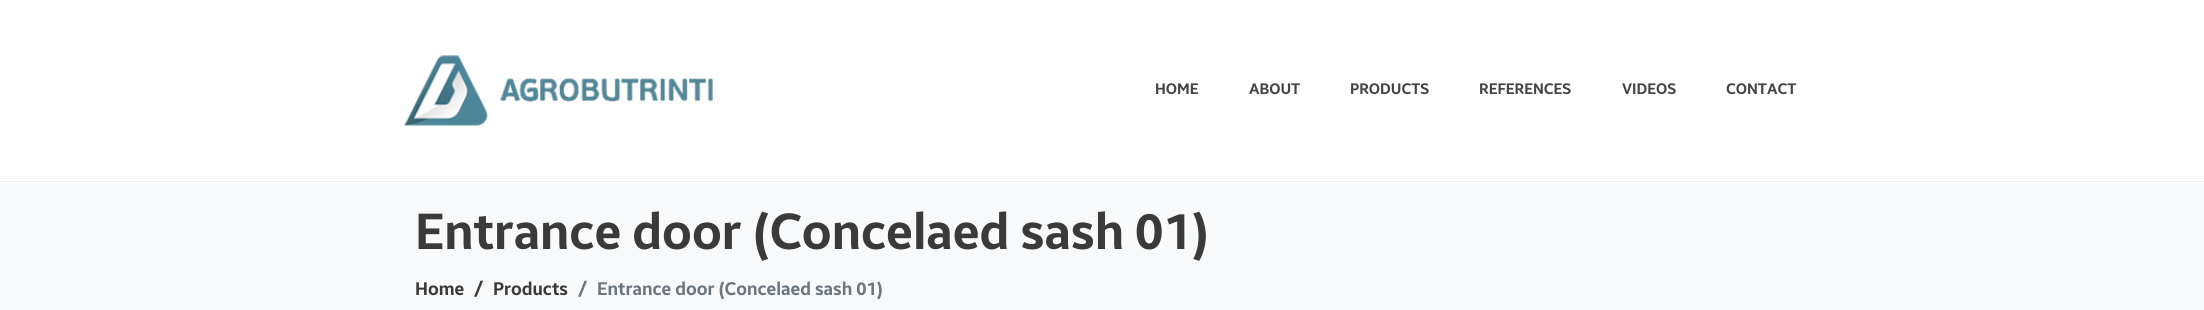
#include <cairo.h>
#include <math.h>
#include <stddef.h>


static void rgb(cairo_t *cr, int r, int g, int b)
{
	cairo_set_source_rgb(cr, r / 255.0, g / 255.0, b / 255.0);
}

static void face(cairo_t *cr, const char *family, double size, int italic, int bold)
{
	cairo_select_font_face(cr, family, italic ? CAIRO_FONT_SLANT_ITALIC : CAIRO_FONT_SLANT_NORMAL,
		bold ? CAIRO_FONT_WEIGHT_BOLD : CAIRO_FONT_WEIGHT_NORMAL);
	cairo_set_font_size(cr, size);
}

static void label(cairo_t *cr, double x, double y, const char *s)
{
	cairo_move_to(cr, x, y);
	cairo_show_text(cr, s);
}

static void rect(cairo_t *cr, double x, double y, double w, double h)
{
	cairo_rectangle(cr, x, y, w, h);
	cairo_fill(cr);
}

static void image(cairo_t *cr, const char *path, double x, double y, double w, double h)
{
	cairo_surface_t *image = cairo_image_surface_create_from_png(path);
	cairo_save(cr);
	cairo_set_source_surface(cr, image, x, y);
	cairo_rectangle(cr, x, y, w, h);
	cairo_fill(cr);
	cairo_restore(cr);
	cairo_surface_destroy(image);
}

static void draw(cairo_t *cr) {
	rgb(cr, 255, 255, 255);
	cairo_paint(cr);
	rgb(cr, 236, 237, 238);
	rect(cr, 0, 181, 2204, 1);
	image(cr, "image0.png", 404, 55, 309, 72);
	face(cr, "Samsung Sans", 15, 0, 1);
	rgb(cr, 68, 68, 68);
	label(cr, 1155, 94, "HOME");
	label(cr, 1249, 94, "ABOUT");
	label(cr, 1350, 94, "PRODUCTS");
	label(cr, 1479, 94, "REFERENCES");
	label(cr, 1622, 94, "VIDEOS");
	label(cr, 1726, 94, "CONTACT");
	rgb(cr, 248, 249, 250);
	rect(cr, 0, 183, 2204, 127);
	face(cr, "Samsung Sans", 50, 0, 1);
	rgb(cr, 58, 58, 58);
	label(cr, 415, 249, "Entrance door (Concelaed sash 01)");
	face(cr, "Samsung Sans", 18, 0, 1);
	label(cr, 415, 295, "Home");
	label(cr, 474, 295, "/");
	label(cr, 493, 295, "Products");
	rgb(cr, 108, 117, 125);
	label(cr, 578, 295, "/");
	label(cr, 597, 295, "Entrance door (Concelaed sash 01)");
}

int main(void) {
	cairo_surface_t *surface = cairo_image_surface_create(CAIRO_FORMAT_RGB24, 2204, 310);
	cairo_t *cr = cairo_create(surface);
	cairo_font_options_t *options = cairo_font_options_create();
	cairo_font_options_set_hint_metrics(options, CAIRO_HINT_METRICS_OFF);
	cairo_font_options_set_hint_style(options, CAIRO_HINT_STYLE_NONE);
	cairo_set_font_options(cr, options);
	cairo_set_miter_limit(cr, 4);
	draw(cr);
	cairo_surface_write_to_png(surface, "render.png");
	cairo_font_options_destroy(options);
	cairo_destroy(cr);
	cairo_surface_destroy(surface);
	return 0;
}
